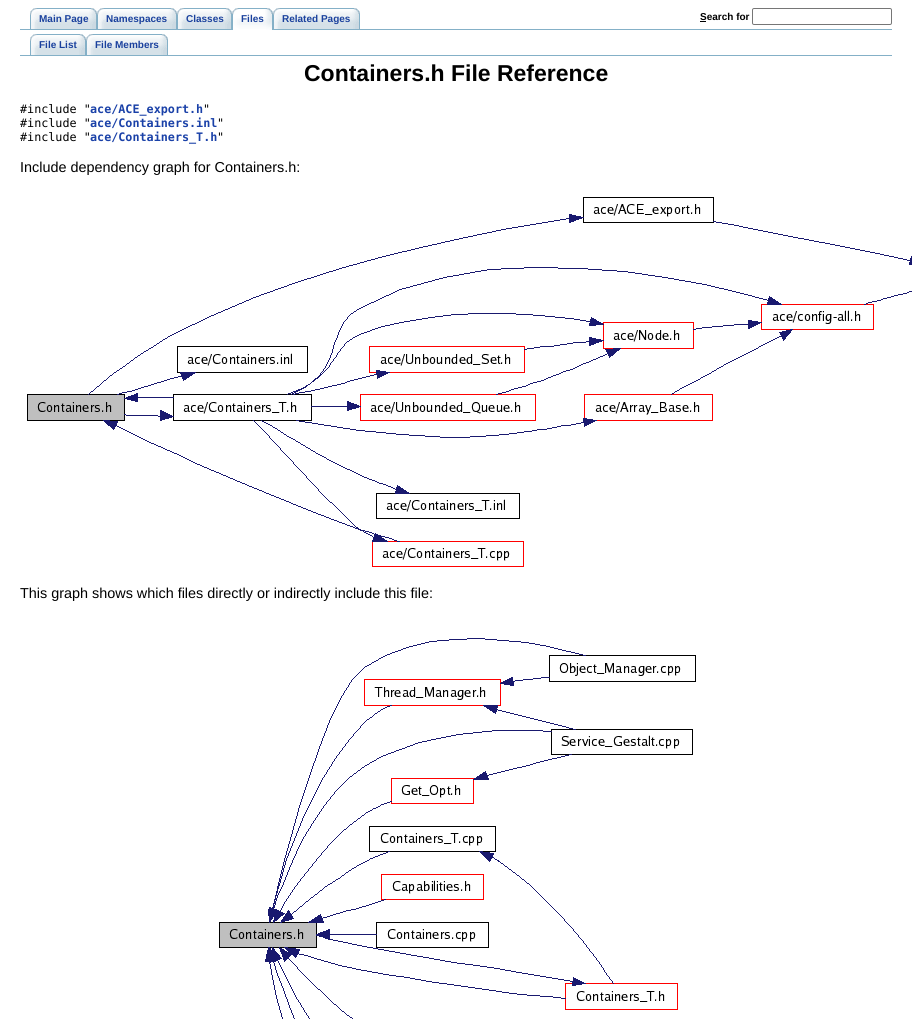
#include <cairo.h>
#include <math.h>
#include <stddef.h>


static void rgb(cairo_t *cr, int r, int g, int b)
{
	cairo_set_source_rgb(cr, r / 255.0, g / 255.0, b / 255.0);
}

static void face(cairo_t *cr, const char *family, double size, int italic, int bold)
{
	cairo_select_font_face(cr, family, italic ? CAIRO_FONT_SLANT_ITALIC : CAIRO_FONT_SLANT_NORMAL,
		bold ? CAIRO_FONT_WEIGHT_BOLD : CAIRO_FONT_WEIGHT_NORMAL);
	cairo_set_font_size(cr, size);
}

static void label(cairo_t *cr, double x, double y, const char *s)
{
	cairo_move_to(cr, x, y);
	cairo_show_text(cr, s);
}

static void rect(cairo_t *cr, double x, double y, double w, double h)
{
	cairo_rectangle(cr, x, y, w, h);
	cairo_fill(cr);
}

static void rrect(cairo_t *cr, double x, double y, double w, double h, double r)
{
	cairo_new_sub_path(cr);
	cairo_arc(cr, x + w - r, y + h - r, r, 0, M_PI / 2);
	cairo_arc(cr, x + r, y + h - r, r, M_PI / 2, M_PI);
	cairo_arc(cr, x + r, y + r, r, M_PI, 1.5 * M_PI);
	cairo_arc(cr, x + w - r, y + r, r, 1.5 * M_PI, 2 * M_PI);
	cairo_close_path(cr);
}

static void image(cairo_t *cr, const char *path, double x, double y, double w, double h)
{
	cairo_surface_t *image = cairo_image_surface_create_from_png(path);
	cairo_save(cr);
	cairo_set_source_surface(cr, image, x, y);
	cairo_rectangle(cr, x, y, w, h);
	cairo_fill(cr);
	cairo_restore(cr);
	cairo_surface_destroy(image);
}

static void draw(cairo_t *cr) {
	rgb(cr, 255, 255, 255);
	cairo_paint(cr);
	rgb(cr, 132, 176, 199);
	rect(cr, 20, 29, 872, 1);
	image(cr, "image0.png", 39, 8, 58, 21);
	image(cr, "image1.png", 30, 8, 9, 21);
	face(cr, "Liberation Sans", 10, 0, 1);
	rgb(cr, 26, 65, 157);
	label(cr, 39, 22, "Main Page");
	image(cr, "image2.png", 106, 8, 71, 21);
	image(cr, "image1.png", 97, 8, 9, 21);
	label(cr, 106, 22, "Namespaces");
	image(cr, "image3.png", 186, 8, 46, 21);
	image(cr, "image1.png", 177, 8, 9, 21);
	label(cr, 186, 22, "Classes");
	image(cr, "image4.png", 239, 8, 34, 22);
	image(cr, "image5.png", 232, 8, 7, 22);
	label(cr, 241, 22, "Files");
	image(cr, "image6.png", 282, 8, 78, 21);
	image(cr, "image1.png", 273, 8, 9, 21);
	label(cr, 282, 22, "Related Pages");
	rgb(cr, 0, 0, 0);
	label(cr, 700, 20, "Search for");
	rect(cr, 700, 21, 6, 1);
	rrect(cr, 752.5, 8.5, 139, 16, 1.5);
	rgb(cr, 118, 118, 118);
	cairo_set_line_width(cr, 1);
	cairo_stroke(cr);
	rgb(cr, 132, 176, 199);
	rect(cr, 20, 55, 872, 1);
	image(cr, "image7.png", 39, 34, 47, 21);
	image(cr, "image1.png", 30, 34, 9, 21);
	rgb(cr, 26, 65, 157);
	label(cr, 39, 48, "File List");
	image(cr, "image8.png", 95, 34, 73, 21);
	image(cr, "image1.png", 86, 34, 9, 21);
	label(cr, 95, 48, "File Members");
	face(cr, "Liberation Sans", 23, 0, 1);
	rgb(cr, 0, 0, 0);
	label(cr, 304, 81, "Containers.h File Reference");
	face(cr, "DejaVu Sans Mono", 11.75, 0, 0);
	label(cr, 20, 113, "#include \"");
	face(cr, "DejaVu Sans Mono", 11.75, 0, 1);
	rgb(cr, 26, 65, 168);
	label(cr, 90, 113, "ace/ACE_export.h");
	face(cr, "DejaVu Sans Mono", 11.75, 0, 0);
	rgb(cr, 0, 0, 0);
	label(cr, 203, 113, "\"");
	label(cr, 20, 127, "#include \"");
	face(cr, "DejaVu Sans Mono", 11.75, 0, 1);
	rgb(cr, 26, 65, 168);
	label(cr, 90, 127, "ace/Containers.inl");
	face(cr, "DejaVu Sans Mono", 11.75, 0, 0);
	rgb(cr, 0, 0, 0);
	label(cr, 217, 127, "\"");
	label(cr, 20, 141, "#include \"");
	face(cr, "DejaVu Sans Mono", 11.75, 0, 1);
	rgb(cr, 26, 65, 168);
	label(cr, 90, 141, "ace/Containers_T.h");
	face(cr, "DejaVu Sans Mono", 11.75, 0, 0);
	rgb(cr, 0, 0, 0);
	label(cr, 217, 141, "\"");
	face(cr, "Liberation Sans", 14.4, 0, 0);
	label(cr, 20, 172, "Include dependency graph for Containers.h:");
	image(cr, "image9.png", 27, 197, 885, 370);
	label(cr, 20, 598, "This graph shows which files directly or indirectly include this file:");
	image(cr, "image10.png", 219, 638, 477, 381);
}

int main(void) {
	cairo_surface_t *surface = cairo_image_surface_create(CAIRO_FORMAT_RGB24, 912, 1019);
	cairo_t *cr = cairo_create(surface);
	cairo_font_options_t *options = cairo_font_options_create();
	cairo_font_options_set_hint_metrics(options, CAIRO_HINT_METRICS_OFF);
	cairo_font_options_set_hint_style(options, CAIRO_HINT_STYLE_NONE);
	cairo_set_font_options(cr, options);
	cairo_set_miter_limit(cr, 4);
	draw(cr);
	cairo_surface_write_to_png(surface, "render.png");
	cairo_font_options_destroy(options);
	cairo_destroy(cr);
	cairo_surface_destroy(surface);
	return 0;
}
